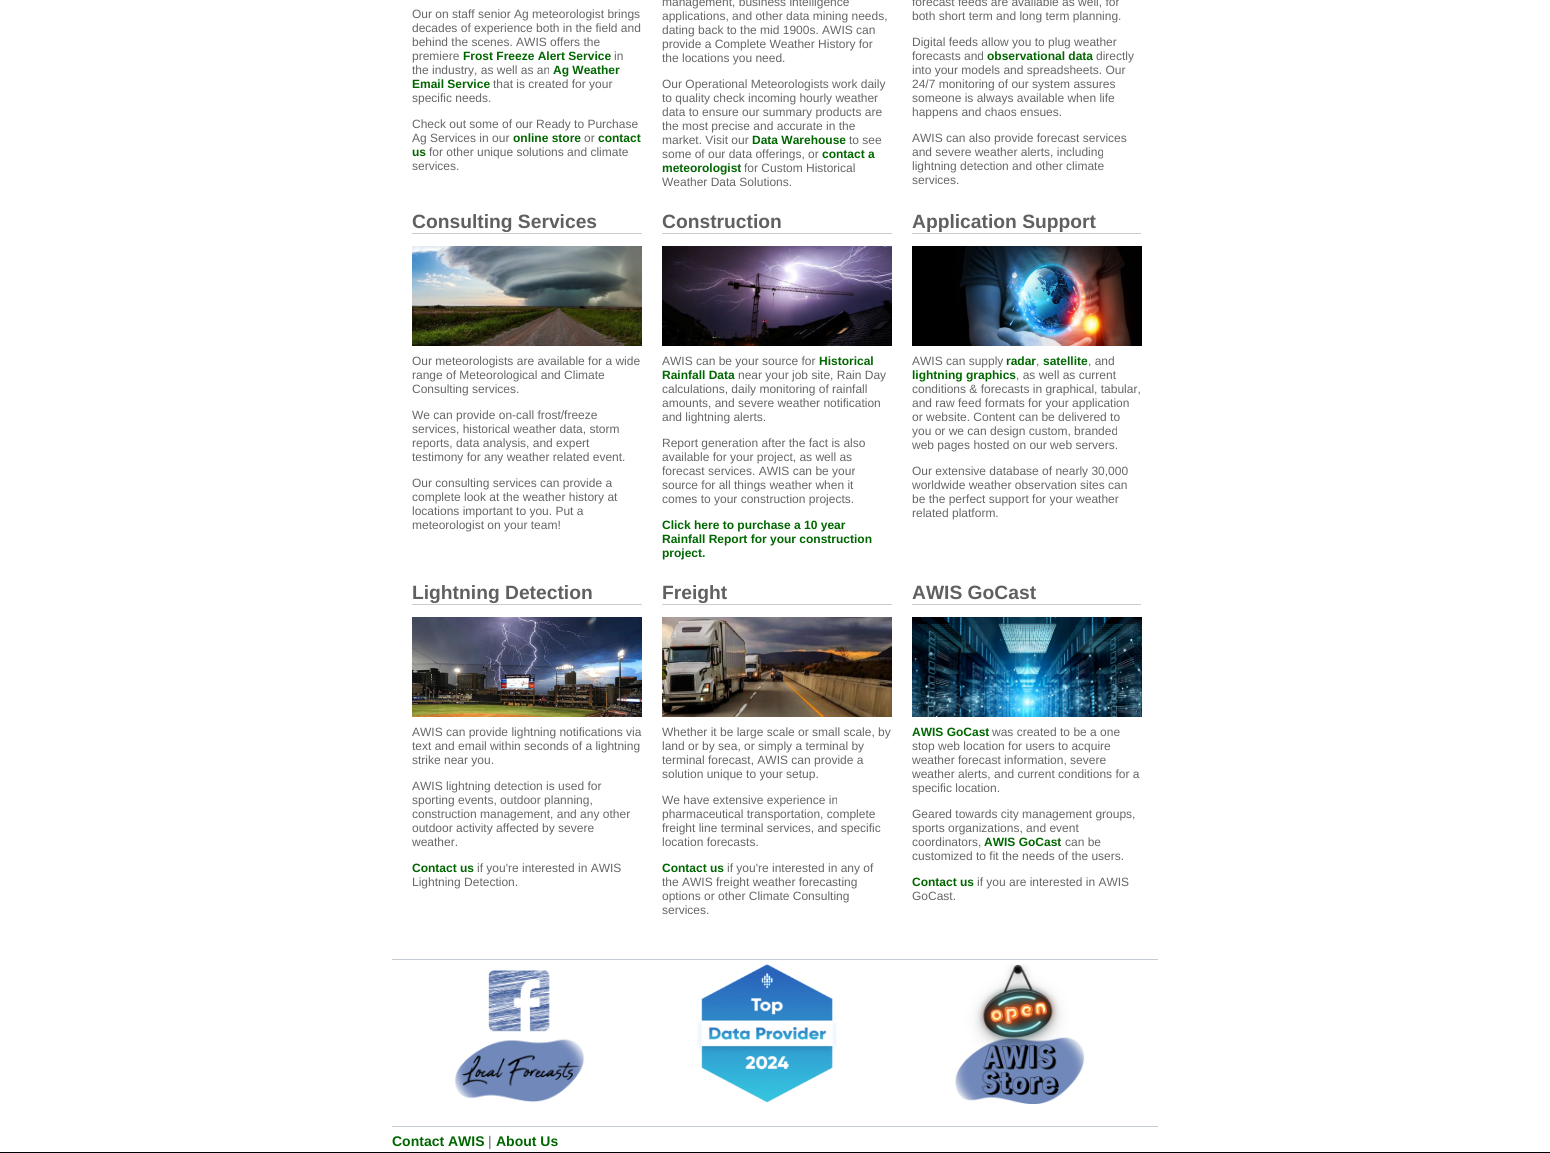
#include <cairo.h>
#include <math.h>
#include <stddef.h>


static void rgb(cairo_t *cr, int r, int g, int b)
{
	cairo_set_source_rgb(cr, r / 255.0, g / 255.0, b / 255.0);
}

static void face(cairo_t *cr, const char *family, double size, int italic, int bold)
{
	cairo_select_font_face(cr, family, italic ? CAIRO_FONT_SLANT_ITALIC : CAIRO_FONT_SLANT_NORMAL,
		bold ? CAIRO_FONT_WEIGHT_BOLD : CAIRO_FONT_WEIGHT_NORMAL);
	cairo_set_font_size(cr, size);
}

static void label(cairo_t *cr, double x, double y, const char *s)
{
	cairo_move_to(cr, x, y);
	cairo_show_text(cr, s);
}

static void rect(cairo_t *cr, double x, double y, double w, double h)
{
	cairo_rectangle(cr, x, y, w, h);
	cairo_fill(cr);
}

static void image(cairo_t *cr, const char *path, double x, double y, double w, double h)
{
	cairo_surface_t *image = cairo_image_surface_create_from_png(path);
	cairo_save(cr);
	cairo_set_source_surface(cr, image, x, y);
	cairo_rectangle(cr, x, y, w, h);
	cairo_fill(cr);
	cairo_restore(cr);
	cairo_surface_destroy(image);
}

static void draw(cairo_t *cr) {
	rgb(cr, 255, 255, 255);
	cairo_paint(cr);
	face(cr, "Liberation Sans", 12, 0, 0);
	rgb(cr, 102, 102, 102);
	label(cr, 412, 18, "Our on staff senior Ag meteorologist brings");
	label(cr, 412, 32, "decades of experience both in the field and");
	label(cr, 412, 46, "behind the scenes. AWIS offers the");
	label(cr, 412, 60, "premiere");
	face(cr, "Liberation Sans", 12, 0, 1);
	rgb(cr, 0, 102, 0);
	label(cr, 463, 60, "Frost Freeze Alert Service");
	face(cr, "Liberation Sans", 12, 0, 0);
	rgb(cr, 102, 102, 102);
	label(cr, 614, 60, "in");
	label(cr, 412, 74, "the industry, as well as an");
	face(cr, "Liberation Sans", 12, 0, 1);
	rgb(cr, 0, 102, 0);
	label(cr, 553, 74, "Ag Weather");
	label(cr, 412, 88, "Email Service");
	face(cr, "Liberation Sans", 12, 0, 0);
	rgb(cr, 102, 102, 102);
	label(cr, 493, 88, "that is created for your");
	label(cr, 412, 102, "specific needs.");
	label(cr, 412, 128, "Check out some of our Ready to Purchase");
	label(cr, 412, 142, "Ag Services in our");
	face(cr, "Liberation Sans", 12, 0, 1);
	rgb(cr, 0, 102, 0);
	label(cr, 513, 142, "online store");
	face(cr, "Liberation Sans", 12, 0, 0);
	rgb(cr, 102, 102, 102);
	label(cr, 584, 142, "or");
	face(cr, "Liberation Sans", 12, 0, 1);
	rgb(cr, 0, 102, 0);
	label(cr, 598, 142, "contact");
	label(cr, 412, 156, "us");
	face(cr, "Liberation Sans", 12, 0, 0);
	rgb(cr, 102, 102, 102);
	label(cr, 429, 156, "for other unique solutions and climate");
	label(cr, 412, 170, "services.");
	label(cr, 662, 6, "management, business intelligence");
	label(cr, 662, 20, "applications, and other data mining needs,");
	label(cr, 662, 34, "dating back to the mid 1900s. AWIS can");
	label(cr, 662, 48, "provide a Complete Weather History for");
	label(cr, 662, 62, "the locations you need.");
	label(cr, 662, 88, "Our Operational Meteorologists work daily");
	label(cr, 662, 102, "to quality check incoming hourly weather");
	label(cr, 662, 116, "data to ensure our summary products are");
	label(cr, 662, 130, "the most precise and accurate in the");
	label(cr, 662, 144, "market. Visit our");
	face(cr, "Liberation Sans", 12, 0, 1);
	rgb(cr, 0, 102, 0);
	label(cr, 752, 144, "Data Warehouse");
	face(cr, "Liberation Sans", 12, 0, 0);
	rgb(cr, 102, 102, 102);
	label(cr, 849, 144, "to see");
	label(cr, 662, 158, "some of our data offerings, or");
	face(cr, "Liberation Sans", 12, 0, 1);
	rgb(cr, 0, 102, 0);
	label(cr, 822, 158, "contact a");
	label(cr, 662, 172, "meteorologist");
	face(cr, "Liberation Sans", 12, 0, 0);
	rgb(cr, 102, 102, 102);
	label(cr, 744, 172, "for Custom Historical");
	label(cr, 662, 186, "Weather Data Solutions.");
	label(cr, 912, 6, "forecast feeds are available as well, for");
	label(cr, 912, 20, "both short term and long term planning.");
	label(cr, 912, 46, "Digital feeds allow you to plug weather");
	label(cr, 912, 60, "forecasts and");
	face(cr, "Liberation Sans", 12, 0, 1);
	rgb(cr, 0, 102, 0);
	label(cr, 987, 60, "observational data");
	face(cr, "Liberation Sans", 12, 0, 0);
	rgb(cr, 102, 102, 102);
	label(cr, 1096, 60, "directly");
	label(cr, 912, 74, "into your models and spreadsheets. Our");
	label(cr, 912, 88, "24/7 monitoring of our system assures");
	label(cr, 912, 102, "someone is always available when life");
	label(cr, 912, 116, "happens and chaos ensues.");
	label(cr, 912, 142, "AWIS can also provide forecast services");
	label(cr, 912, 156, "and severe weather alerts, including");
	label(cr, 912, 170, "lightning detection and other climate");
	label(cr, 912, 184, "services.");
	rgb(cr, 204, 204, 204);
	rect(cr, 412, 233, 230, 1);
	face(cr, "Liberation Sans", 19.25, 0, 1);
	rgb(cr, 96, 96, 96);
	label(cr, 412, 228, "Consulting Services");
	image(cr, "image0.png", 412, 246, 230, 100);
	face(cr, "Liberation Sans", 12, 0, 0);
	rgb(cr, 102, 102, 102);
	label(cr, 412, 365, "Our meteorologists are available for a wide");
	label(cr, 412, 379, "range of Meteorological and Climate");
	label(cr, 412, 393, "Consulting services.");
	label(cr, 412, 419, "We can provide on-call frost/freeze");
	label(cr, 412, 433, "services, historical weather data, storm");
	label(cr, 412, 447, "reports, data analysis, and expert");
	label(cr, 412, 461, "testimony for any weather related event.");
	label(cr, 412, 487, "Our consulting services can provide a");
	label(cr, 412, 501, "complete look at the weather history at");
	label(cr, 412, 515, "locations important to you. Put a");
	label(cr, 412, 529, "meteorologist on your team!");
	rgb(cr, 204, 204, 204);
	rect(cr, 662, 233, 230, 1);
	face(cr, "Liberation Sans", 19.25, 0, 1);
	rgb(cr, 96, 96, 96);
	label(cr, 662, 228, "Construction");
	image(cr, "image1.png", 662, 246, 230, 100);
	face(cr, "Liberation Sans", 12, 0, 0);
	rgb(cr, 102, 102, 102);
	label(cr, 662, 365, "AWIS can be your source for");
	face(cr, "Liberation Sans", 12, 0, 1);
	rgb(cr, 0, 102, 0);
	label(cr, 819, 365, "Historical");
	label(cr, 662, 379, "Rainfall Data");
	face(cr, "Liberation Sans", 12, 0, 0);
	rgb(cr, 102, 102, 102);
	label(cr, 738, 379, "near your job site, Rain Day");
	label(cr, 662, 393, "calculations, daily monitoring of rainfall");
	label(cr, 662, 407, "amounts, and severe weather notification");
	label(cr, 662, 421, "and lightning alerts.");
	label(cr, 662, 447, "Report generation after the fact is also");
	label(cr, 662, 461, "available for your project, as well as");
	label(cr, 662, 475, "forecast services. AWIS can be your");
	label(cr, 662, 489, "source for all things weather when it");
	label(cr, 662, 503, "comes to your construction projects.");
	face(cr, "Liberation Sans", 12, 0, 1);
	rgb(cr, 0, 102, 0);
	label(cr, 662, 529, "Click here to purchase a 10 year");
	label(cr, 662, 543, "Rainfall Report for your construction");
	label(cr, 662, 557, "project.");
	rgb(cr, 204, 204, 204);
	rect(cr, 912, 233, 229, 1);
	face(cr, "Liberation Sans", 19.25, 0, 1);
	rgb(cr, 96, 96, 96);
	label(cr, 912, 228, "Application Support");
	image(cr, "image2.png", 912, 246, 230, 100);
	face(cr, "Liberation Sans", 12, 0, 0);
	rgb(cr, 102, 102, 102);
	label(cr, 912, 365, "AWIS can supply");
	face(cr, "Liberation Sans", 12, 0, 1);
	rgb(cr, 0, 102, 0);
	label(cr, 1006, 365, "radar");
	face(cr, "Liberation Sans", 12, 0, 0);
	rgb(cr, 102, 102, 102);
	label(cr, 1036, 365, ",");
	face(cr, "Liberation Sans", 12, 0, 1);
	rgb(cr, 0, 102, 0);
	label(cr, 1043, 365, "satellite");
	face(cr, "Liberation Sans", 12, 0, 0);
	rgb(cr, 102, 102, 102);
	label(cr, 1088, 365, ", and");
	face(cr, "Liberation Sans", 12, 0, 1);
	rgb(cr, 0, 102, 0);
	label(cr, 912, 379, "lightning graphics");
	face(cr, "Liberation Sans", 12, 0, 0);
	rgb(cr, 102, 102, 102);
	label(cr, 1016, 379, ", as well as current");
	label(cr, 912, 393, "conditions & forecasts in graphical, tabular,");
	label(cr, 912, 407, "and raw feed formats for your application");
	label(cr, 912, 421, "or website. Content can be delivered to");
	label(cr, 912, 435, "you or we can design custom, branded");
	label(cr, 912, 449, "web pages hosted on our web servers.");
	label(cr, 912, 475, "Our extensive database of nearly 30,000");
	label(cr, 912, 489, "worldwide weather observation sites can");
	label(cr, 912, 503, "be the perfect support for your weather");
	label(cr, 912, 517, "related platform.");
	rgb(cr, 204, 204, 204);
	rect(cr, 412, 604, 230, 1);
	face(cr, "Liberation Sans", 19.25, 0, 1);
	rgb(cr, 96, 96, 96);
	label(cr, 412, 599, "Lightning Detection");
	image(cr, "image3.png", 412, 617, 230, 100);
	face(cr, "Liberation Sans", 12, 0, 0);
	rgb(cr, 102, 102, 102);
	label(cr, 412, 736, "AWIS can provide lightning notifications via");
	label(cr, 412, 750, "text and email within seconds of a lightning");
	label(cr, 412, 764, "strike near you.");
	label(cr, 412, 790, "AWIS lightning detection is used for");
	label(cr, 412, 804, "sporting events, outdoor planning,");
	label(cr, 412, 818, "construction management, and any other");
	label(cr, 412, 832, "outdoor activity affected by severe");
	label(cr, 412, 846, "weather.");
	face(cr, "Liberation Sans", 12, 0, 1);
	rgb(cr, 0, 102, 0);
	label(cr, 412, 872, "Contact us");
	face(cr, "Liberation Sans", 12, 0, 0);
	rgb(cr, 102, 102, 102);
	label(cr, 477, 872, "if you're interested in AWIS");
	label(cr, 412, 886, "Lightning Detection.");
	rgb(cr, 204, 204, 204);
	rect(cr, 662, 604, 230, 1);
	face(cr, "Liberation Sans", 19.25, 0, 1);
	rgb(cr, 96, 96, 96);
	label(cr, 662, 599, "Freight");
	image(cr, "image4.png", 662, 617, 230, 100);
	face(cr, "Liberation Sans", 12, 0, 0);
	rgb(cr, 102, 102, 102);
	label(cr, 662, 736, "Whether it be large scale or small scale, by");
	label(cr, 662, 750, "land or by sea, or simply a terminal by");
	label(cr, 662, 764, "terminal forecast, AWIS can provide a");
	label(cr, 662, 778, "solution unique to your setup.");
	label(cr, 662, 804, "We have extensive experience in");
	label(cr, 662, 818, "pharmaceutical transportation, complete");
	label(cr, 662, 832, "freight line terminal services, and specific");
	label(cr, 662, 846, "location forecasts.");
	face(cr, "Liberation Sans", 12, 0, 1);
	rgb(cr, 0, 102, 0);
	label(cr, 662, 872, "Contact us");
	face(cr, "Liberation Sans", 12, 0, 0);
	rgb(cr, 102, 102, 102);
	label(cr, 727, 872, "if you're interested in any of");
	label(cr, 662, 886, "the AWIS freight weather forecasting");
	label(cr, 662, 900, "options or other Climate Consulting");
	label(cr, 662, 914, "services.");
	rgb(cr, 204, 204, 204);
	rect(cr, 912, 604, 229, 1);
	face(cr, "Liberation Sans", 19.25, 0, 1);
	rgb(cr, 96, 96, 96);
	label(cr, 912, 599, "AWIS GoCast");
	image(cr, "image5.png", 912, 617, 230, 100);
	face(cr, "Liberation Sans", 12, 0, 1);
	rgb(cr, 0, 102, 0);
	label(cr, 912, 736, "AWIS GoCast");
	face(cr, "Liberation Sans", 12, 0, 0);
	rgb(cr, 102, 102, 102);
	label(cr, 992, 736, "was created to be a one");
	label(cr, 912, 750, "stop web location for users to acquire");
	label(cr, 912, 764, "weather forecast information, severe");
	label(cr, 912, 778, "weather alerts, and current conditions for a");
	label(cr, 912, 792, "specific location.");
	label(cr, 912, 818, "Geared towards city management groups,");
	label(cr, 912, 832, "sports organizations, and event");
	label(cr, 912, 846, "coordinators,");
	face(cr, "Liberation Sans", 12, 0, 1);
	rgb(cr, 0, 102, 0);
	label(cr, 984, 846, "AWIS GoCast");
	face(cr, "Liberation Sans", 12, 0, 0);
	rgb(cr, 102, 102, 102);
	label(cr, 1065, 846, "can be");
	label(cr, 912, 860, "customized to fit the needs of the users.");
	face(cr, "Liberation Sans", 12, 0, 1);
	rgb(cr, 0, 102, 0);
	label(cr, 912, 886, "Contact us");
	face(cr, "Liberation Sans", 12, 0, 0);
	rgb(cr, 102, 102, 102);
	label(cr, 977, 886, "if you are interested in AWIS");
	label(cr, 912, 900, "GoCast.");
	rgb(cr, 197, 203, 212);
	rect(cr, 392, 959, 766, 1);
	image(cr, "image6.png", 454, 970, 131, 133);
	image(cr, "image7.png", 697, 964, 140, 139);
	image(cr, "image8.png", 955, 964, 130, 140);
	rect(cr, 392, 1126, 766, 1);
	face(cr, "Liberation Sans", 14, 0, 1);
	rgb(cr, 0, 102, 0);
	label(cr, 392, 1146, "Contact AWIS");
	face(cr, "Liberation Sans", 14, 0, 0);
	rgb(cr, 102, 102, 102);
	label(cr, 488, 1146, "|");
	face(cr, "Liberation Sans", 14, 0, 1);
	rgb(cr, 0, 102, 0);
	label(cr, 496, 1146, "About Us");
	rgb(cr, 0, 0, 0);
	rect(cr, 0, 1152, 1550, 1);
}

int main(void) {
	cairo_surface_t *surface = cairo_image_surface_create(CAIRO_FORMAT_RGB24, 1550, 1153);
	cairo_t *cr = cairo_create(surface);
	cairo_font_options_t *options = cairo_font_options_create();
	cairo_font_options_set_hint_metrics(options, CAIRO_HINT_METRICS_OFF);
	cairo_font_options_set_hint_style(options, CAIRO_HINT_STYLE_NONE);
	cairo_set_font_options(cr, options);
	cairo_set_miter_limit(cr, 4);
	draw(cr);
	cairo_surface_write_to_png(surface, "render.png");
	cairo_font_options_destroy(options);
	cairo_destroy(cr);
	cairo_surface_destroy(surface);
	return 0;
}
